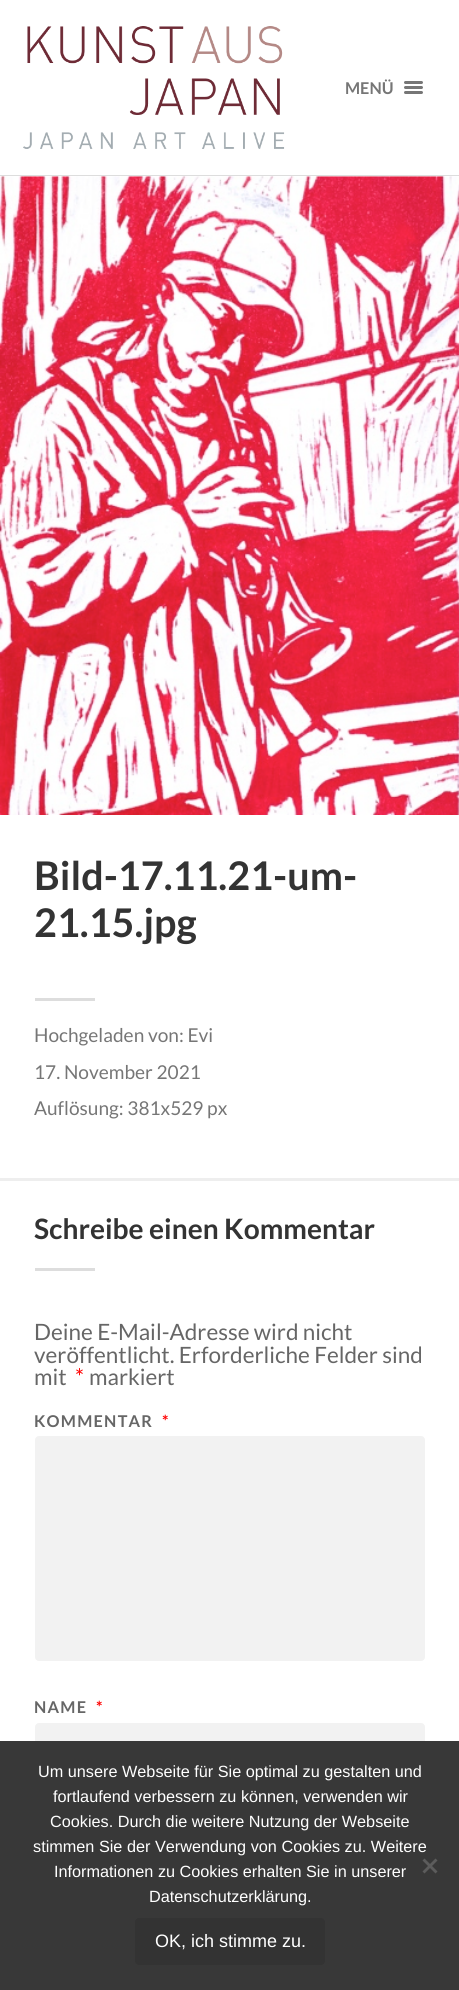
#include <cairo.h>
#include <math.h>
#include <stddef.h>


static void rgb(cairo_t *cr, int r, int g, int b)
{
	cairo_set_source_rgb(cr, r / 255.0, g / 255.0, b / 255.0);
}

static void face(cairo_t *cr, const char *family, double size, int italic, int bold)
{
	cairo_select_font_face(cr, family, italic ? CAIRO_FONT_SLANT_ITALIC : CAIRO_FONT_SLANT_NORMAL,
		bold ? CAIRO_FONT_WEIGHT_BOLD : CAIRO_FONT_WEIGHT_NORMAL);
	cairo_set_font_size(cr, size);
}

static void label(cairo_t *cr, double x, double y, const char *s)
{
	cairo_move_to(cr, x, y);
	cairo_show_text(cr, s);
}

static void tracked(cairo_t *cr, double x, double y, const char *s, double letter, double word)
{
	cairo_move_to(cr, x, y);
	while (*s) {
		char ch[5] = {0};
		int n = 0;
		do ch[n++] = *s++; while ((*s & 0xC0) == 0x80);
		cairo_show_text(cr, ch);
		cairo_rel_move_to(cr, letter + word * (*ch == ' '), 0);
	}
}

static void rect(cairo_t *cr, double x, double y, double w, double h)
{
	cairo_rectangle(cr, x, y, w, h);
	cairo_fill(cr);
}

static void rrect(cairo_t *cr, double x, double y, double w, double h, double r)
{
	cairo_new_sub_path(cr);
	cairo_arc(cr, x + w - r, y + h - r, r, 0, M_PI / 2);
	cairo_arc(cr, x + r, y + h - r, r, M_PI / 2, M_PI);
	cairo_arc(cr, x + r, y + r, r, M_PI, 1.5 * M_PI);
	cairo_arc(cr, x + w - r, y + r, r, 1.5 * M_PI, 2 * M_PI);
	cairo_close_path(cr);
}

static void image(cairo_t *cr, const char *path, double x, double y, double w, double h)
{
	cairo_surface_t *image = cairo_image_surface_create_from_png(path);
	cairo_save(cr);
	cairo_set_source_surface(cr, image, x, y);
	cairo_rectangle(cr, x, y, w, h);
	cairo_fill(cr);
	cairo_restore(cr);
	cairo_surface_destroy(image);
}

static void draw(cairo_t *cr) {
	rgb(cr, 255, 255, 255);
	cairo_paint(cr);
	rgb(cr, 221, 221, 221);
	rect(cr, 0, 175, 459, 1);
	image(cr, "image0.png", 23, 26, 262, 123);
	face(cr, "Lato", 16.25, 0, 1);
	rgb(cr, 118, 118, 118);
	label(cr, 345, 94, "MENÜ");
	rrect(cr, 404, 81, 19, 3, 1.5);
	cairo_fill(cr);
	rrect(cr, 404, 86, 19, 3, 1.5);
	cairo_fill(cr);
	rrect(cr, 404, 91, 19, 3, 1.5);
	cairo_fill(cr);
	image(cr, "image1.png", 0, 176, 459, 639);
	face(cr, "Lato", 39.5, 0, 1);
	rgb(cr, 51, 51, 51);
	label(cr, 34, 890, "Bild-17.11.21-um-");
	label(cr, 34, 937, "21.15.jpg");
	rgb(cr, 221, 221, 221);
	rect(cr, 35, 998, 60, 3);
	face(cr, "Lato", 19.1, 0, 0);
	rgb(cr, 118, 118, 118);
	label(cr, 34, 1042, "Hochgeladen von: Evi");
	label(cr, 34, 1079, "17. November 2021");
	label(cr, 34, 1115, "Auflösung: 381x529 px");
	rgb(cr, 238, 238, 238);
	rect(cr, 0, 1178, 459, 3);
	face(cr, "Lato", 28.1, 0, 1);
	rgb(cr, 51, 51, 51);
	label(cr, 34, 1239, "Schreibe einen Kommentar");
	rgb(cr, 221, 221, 221);
	rect(cr, 35, 1268, 60, 3);
	face(cr, "Lato", 22.5, 0, 0);
	rgb(cr, 102, 102, 102);
	label(cr, 34, 1340, "Deine E-Mail-Adresse wird nicht");
	label(cr, 34, 1363, "veröffentlicht. Erforderliche Felder sind");
	label(cr, 34, 1385, "mit");
	rgb(cr, 255, 0, 0);
	label(cr, 75, 1385, "*");
	rgb(cr, 102, 102, 102);
	label(cr, 89, 1385, "markiert");
	face(cr, "Lato", 16.25, 0, 1);
	tracked(cr, 34, 1427, "KOMMENTAR", 1.25, 0);
	rgb(cr, 255, 0, 0);
	tracked(cr, 162, 1427, "*", 1.25, 0);
	rgb(cr, 242, 242, 242);
	rrect(cr, 35, 1436, 390, 225, 4);
	cairo_fill(cr);
	rgb(cr, 102, 102, 102);
	tracked(cr, 34, 1713, "NAME", 1.25, 0);
	rgb(cr, 255, 0, 0);
	tracked(cr, 96, 1713, "*", 1.25, 0);
	rgb(cr, 242, 242, 242);
	rrect(cr, 35, 1723, 390, 66, 4);
	cairo_fill(cr);
	rgb(cr, 56, 56, 56);
	rect(cr, 0, 1741, 459, 249);
	face(cr, "Liberation Sans", 16.25, 0, 0);
	rgb(cr, 255, 255, 255);
	label(cr, 38, 1777, "Um unsere Webseite für Sie optimal zu gestalten und");
	label(cr, 53, 1802, "fortlaufend verbessern zu können, verwenden wir");
	label(cr, 50, 1827, "Cookies. Durch die weitere Nutzung der Webseite");
	label(cr, 33, 1852, "stimmen Sie der Verwendung von Cookies zu. Weitere");
	label(cr, 54, 1877, "Informationen zu Cookies erhalten Sie in unserer");
	label(cr, 149, 1902, "Datenschutzerklärung.");
	rgb(cr, 92, 92, 92);
	cairo_new_path(cr);
	cairo_move_to(cr, 435.5, 1858.5);
	cairo_line_to(cr, 437.5, 1860.5);
	cairo_line_to(cr, 424.5, 1873.5);
	cairo_line_to(cr, 422.5, 1871.5);
	cairo_close_path(cr);
	cairo_fill(cr);
	cairo_new_path(cr);
	cairo_move_to(cr, 422.5, 1860.5);
	cairo_line_to(cr, 424.5, 1858.5);
	cairo_line_to(cr, 437.5, 1871.5);
	cairo_line_to(cr, 435.5, 1873.5);
	cairo_close_path(cr);
	cairo_fill(cr);
	rgb(cr, 51, 51, 51);
	rrect(cr, 135, 1918, 190, 47, 4);
	cairo_fill(cr);
	face(cr, "Liberation Sans", 18, 0, 0);
	rgb(cr, 255, 255, 255);
	label(cr, 155, 1947, "OK, ich stimme zu.");
}

int main(void) {
	cairo_surface_t *surface = cairo_image_surface_create(CAIRO_FORMAT_RGB24, 459, 1990);
	cairo_t *cr = cairo_create(surface);
	cairo_font_options_t *options = cairo_font_options_create();
	cairo_font_options_set_hint_metrics(options, CAIRO_HINT_METRICS_OFF);
	cairo_font_options_set_hint_style(options, CAIRO_HINT_STYLE_NONE);
	cairo_set_font_options(cr, options);
	cairo_set_miter_limit(cr, 4);
	draw(cr);
	cairo_surface_write_to_png(surface, "render.png");
	cairo_font_options_destroy(options);
	cairo_destroy(cr);
	cairo_surface_destroy(surface);
	return 0;
}
